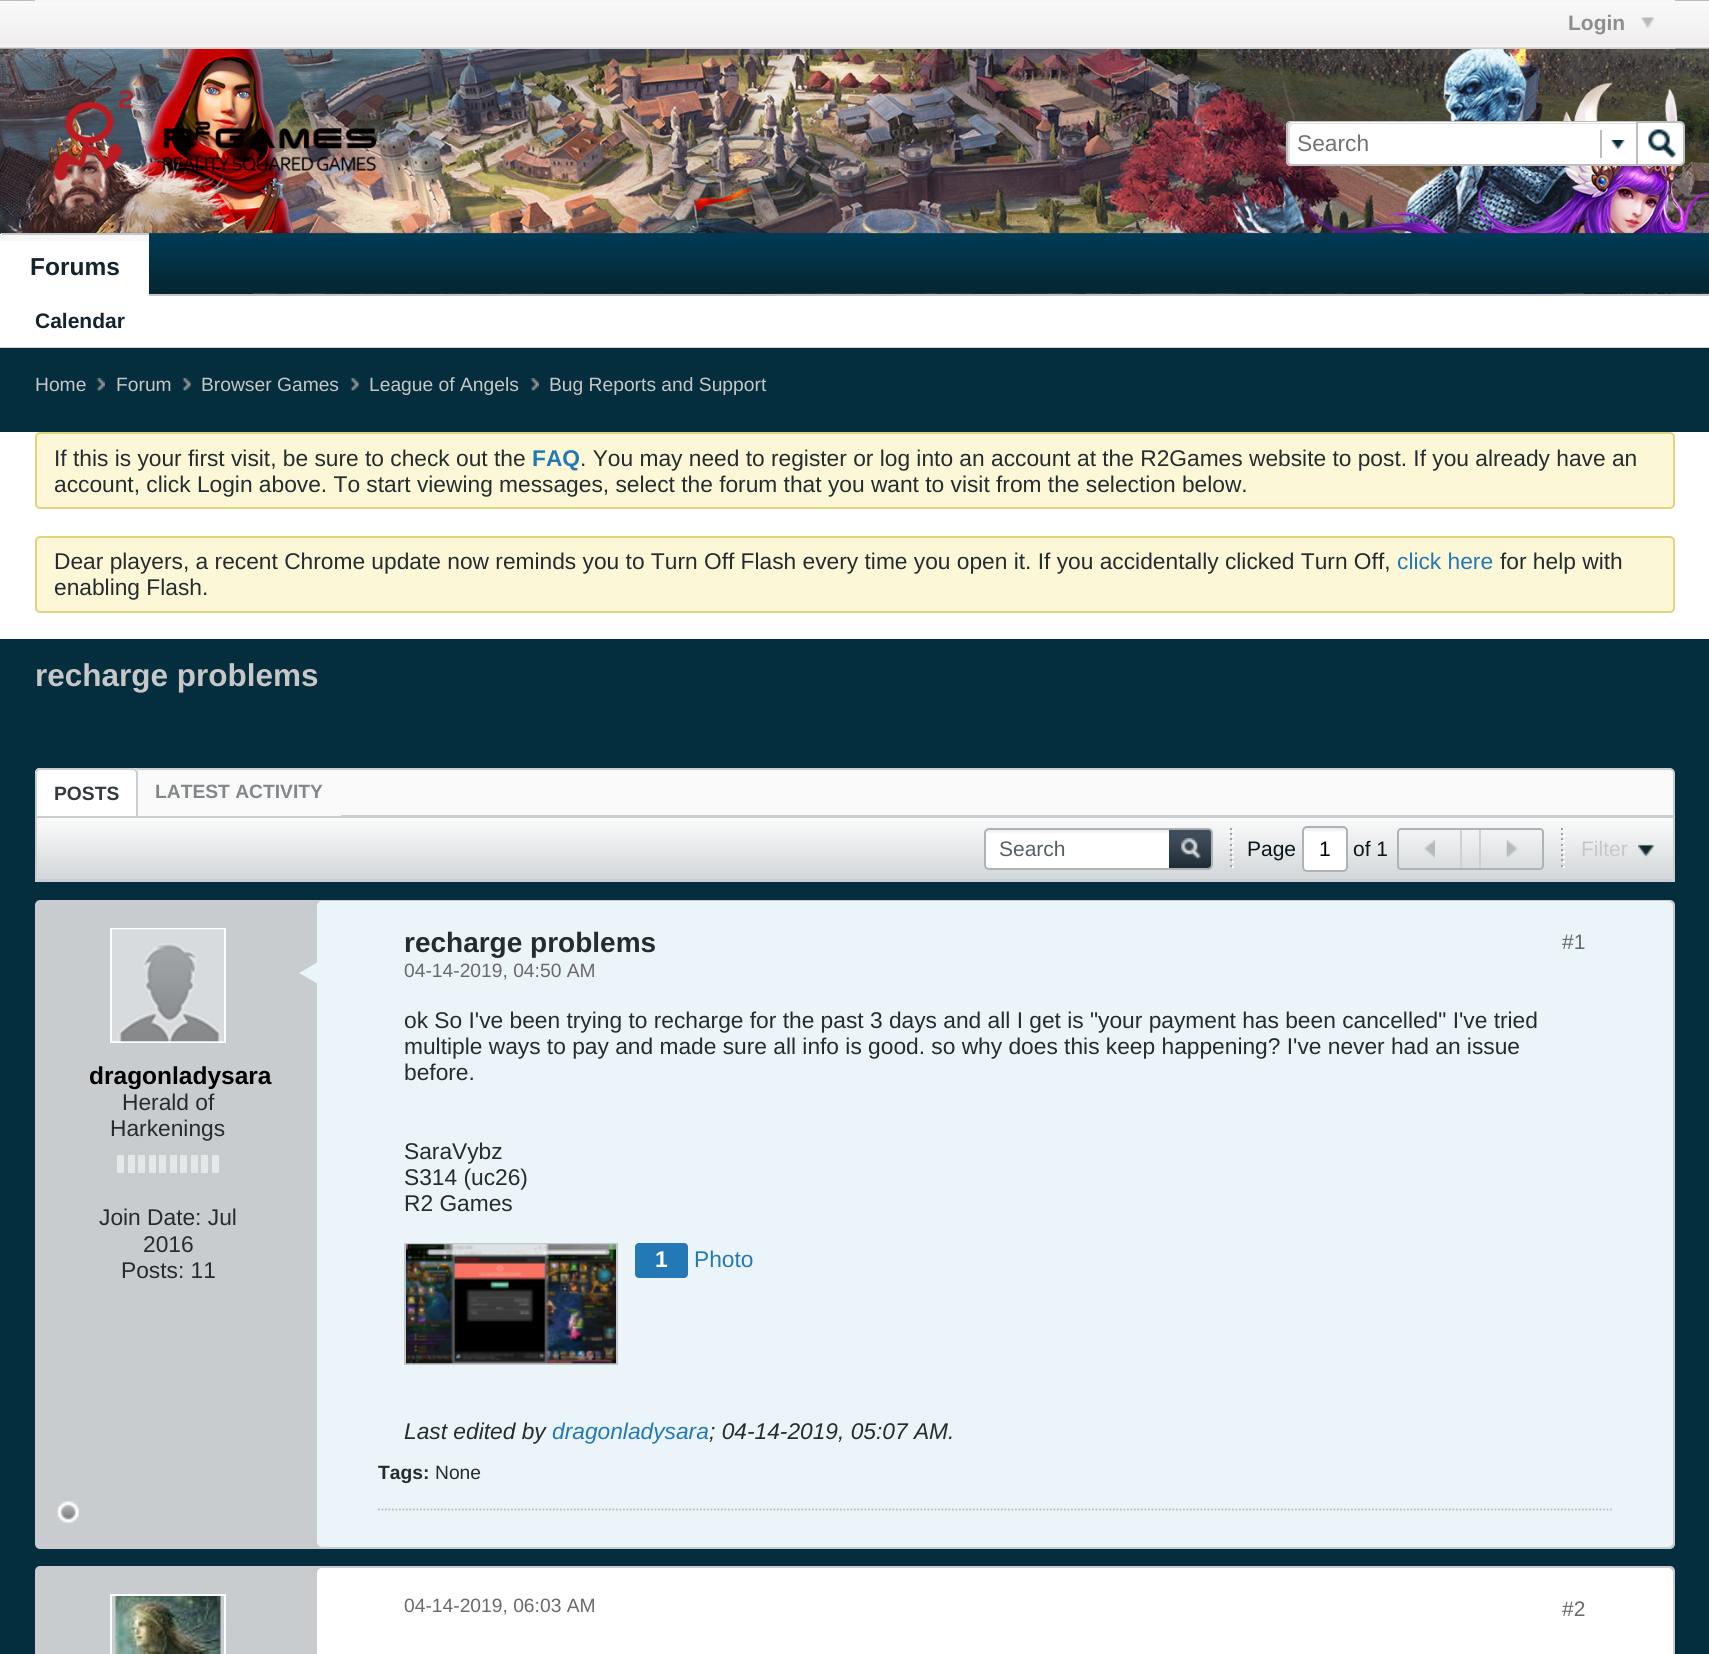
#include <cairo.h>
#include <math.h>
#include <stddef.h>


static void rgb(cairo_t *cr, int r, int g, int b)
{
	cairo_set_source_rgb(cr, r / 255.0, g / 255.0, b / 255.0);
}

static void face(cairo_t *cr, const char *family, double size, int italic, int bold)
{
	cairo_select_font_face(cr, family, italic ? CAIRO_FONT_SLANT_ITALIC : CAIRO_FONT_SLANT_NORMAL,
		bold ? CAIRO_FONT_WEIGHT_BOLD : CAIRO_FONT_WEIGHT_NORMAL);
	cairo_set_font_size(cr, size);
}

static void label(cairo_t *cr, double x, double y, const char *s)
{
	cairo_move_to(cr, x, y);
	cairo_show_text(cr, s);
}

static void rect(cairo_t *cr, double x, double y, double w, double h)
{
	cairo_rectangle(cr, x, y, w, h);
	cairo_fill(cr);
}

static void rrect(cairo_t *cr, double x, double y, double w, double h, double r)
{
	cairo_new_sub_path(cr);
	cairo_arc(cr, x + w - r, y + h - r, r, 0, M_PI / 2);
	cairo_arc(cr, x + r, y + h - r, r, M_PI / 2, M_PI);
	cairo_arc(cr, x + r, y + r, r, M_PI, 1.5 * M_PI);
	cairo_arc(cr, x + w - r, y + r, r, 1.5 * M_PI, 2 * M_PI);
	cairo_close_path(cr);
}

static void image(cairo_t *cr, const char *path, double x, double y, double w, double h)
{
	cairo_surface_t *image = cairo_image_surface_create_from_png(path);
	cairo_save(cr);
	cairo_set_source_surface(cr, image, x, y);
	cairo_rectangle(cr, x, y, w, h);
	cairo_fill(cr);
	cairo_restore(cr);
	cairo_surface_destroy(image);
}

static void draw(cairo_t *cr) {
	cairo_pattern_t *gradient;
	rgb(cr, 255, 255, 255);
	cairo_paint(cr);
	image(cr, "image0.png", 0, 0, 1709, 49);
	image(cr, "image1.png", 0, 0, 1709, 49);
	rgb(cr, 241, 239, 240);
	rect(cr, 35, 0, 1640, 49);
	image(cr, "image2.png", 35, 0, 1640, 49);
	face(cr, "Liberation Sans", 21, 0, 1);
	rgb(cr, 142, 142, 142);
	label(cr, 1568, 30, "Login");
	image(cr, "image3.png", 1641, 17, 13, 11);
	image(cr, "image4.png", 0, 49, 1709, 245);
	image(cr, "image5.png", 52, 90, 325, 91);
	rgb(cr, 255, 255, 255);
	cairo_new_path(cr);
	cairo_move_to(cr, 1291, 121);
	cairo_line_to(cr, 1636, 121);
	cairo_line_to(cr, 1636, 166);
	cairo_line_to(cr, 1291, 166);
	cairo_curve_to(cr, 1288, 166, 1286, 164, 1286, 161);
	cairo_line_to(cr, 1286, 126);
	cairo_curve_to(cr, 1286, 123, 1288, 121, 1291, 121);
	cairo_close_path(cr);
	cairo_fill(cr);
	rgb(cr, 224, 224, 224);
	cairo_new_path(cr);
	cairo_move_to(cr, 1293, 124);
	cairo_line_to(cr, 1636, 124);
	cairo_line_to(cr, 1636, 123);
	cairo_line_to(cr, 1292, 123);
	cairo_curve_to(cr, 1290, 123, 1288, 125, 1288, 127);
	cairo_line_to(cr, 1288, 161);
	cairo_curve_to(cr, 1288, 163, 1289, 164, 1290, 165);
	cairo_line_to(cr, 1290, 134);
	cairo_curve_to(cr, 1290, 132, 1289, 124, 1293, 124);
	cairo_close_path(cr);
	cairo_fill(cr);
	rgb(cr, 189, 189, 189);
	cairo_set_fill_rule(cr, CAIRO_FILL_RULE_EVEN_ODD);
	cairo_new_path(cr);
	cairo_move_to(cr, 1292, 121);
	cairo_line_to(cr, 1636, 121);
	cairo_line_to(cr, 1636, 166);
	cairo_line_to(cr, 1292, 166);
	cairo_curve_to(cr, 1289, 166, 1286, 164, 1286, 161);
	cairo_line_to(cr, 1286, 126);
	cairo_curve_to(cr, 1286, 123, 1289, 121, 1292, 121);
	cairo_close_path(cr);
	cairo_move_to(cr, 1292, 122);
	cairo_line_to(cr, 1636, 122);
	cairo_line_to(cr, 1636, 164);
	cairo_line_to(cr, 1292, 164);
	cairo_curve_to(cr, 1290, 164, 1288, 163, 1288, 161);
	cairo_line_to(cr, 1288, 126);
	cairo_curve_to(cr, 1288, 124, 1290, 122, 1292, 122);
	cairo_close_path(cr);
	cairo_fill(cr);
	face(cr, "Liberation Sans", 22.75, 0, 0);
	rgb(cr, 114, 114, 114);
	label(cr, 1297, 151, "Search");
	rgb(cr, 189, 189, 189);
	rect(cr, 1600, 130, 2, 28);
	image(cr, "image6.png", 1611, 140, 14, 10);
	rgb(cr, 255, 255, 255);
	cairo_new_path(cr);
	cairo_move_to(cr, 1637, 122);
	cairo_line_to(cr, 1680, 122);
	cairo_curve_to(cr, 1682, 122, 1684, 124, 1684, 126);
	cairo_line_to(cr, 1684, 161);
	cairo_curve_to(cr, 1684, 163, 1682, 165, 1680, 165);
	cairo_line_to(cr, 1637, 165);
	cairo_close_path(cr);
	cairo_fill_preserve(cr);
	rgb(cr, 189, 189, 189);
	cairo_stroke(cr);
	image(cr, "image7.png", 1648, 129, 29, 29);
	image(cr, "image8.png", 0, 232, 1709, 62);
	rgb(cr, 196, 199, 200);
	rect(cr, 149, 294, 1560, 2);
	rgb(cr, 255, 255, 255);
	cairo_new_path(cr);
	cairo_move_to(cr, 2, 233);
	cairo_line_to(cr, 147, 233);
	cairo_curve_to(cr, 148, 233, 149, 234, 149, 235);
	cairo_line_to(cr, 149, 296);
	cairo_line_to(cr, 0, 296);
	cairo_line_to(cr, 0, 235);
	cairo_curve_to(cr, 0, 234, 1, 233, 2, 233);
	cairo_close_path(cr);
	cairo_fill(cr);
	rgb(cr, 248, 248, 248);
	rect(cr, 0, 234, 149, 7);
	rgb(cr, 196, 199, 200);
	rect(cr, 2, 233, 147, 2);
	face(cr, "Liberation Sans", 24.5, 0, 1);
	rgb(cr, 19, 36, 47);
	label(cr, 30, 275, "Forums");
	rgb(cr, 211, 213, 214);
	rect(cr, 0, 347, 1709, 1);
	face(cr, "Liberation Sans", 21, 0, 1);
	rgb(cr, 19, 36, 47);
	label(cr, 35, 328, "Calendar");
	rgb(cr, 4, 45, 62);
	rect(cr, 0, 348, 1709, 84);
	face(cr, "Liberation Sans", 19.25, 0, 0);
	rgb(cr, 199, 199, 199);
	label(cr, 35, 391, "Home");
	image(cr, "image9.png", 96, 378, 9, 13);
	label(cr, 116, 391, "Forum");
	image(cr, "image10.png", 182, 378, 9, 13);
	label(cr, 201, 391, "Browser Games");
	image(cr, "image10.png", 350, 378, 9, 13);
	label(cr, 369, 391, "League of Angels");
	image(cr, "image11.png", 530, 378, 9, 13);
	label(cr, 549, 391, "Bug Reports and Support");
	rgb(cr, 252, 247, 215);
	rrect(cr, 36, 433, 1638, 75, 4);
	cairo_fill_preserve(cr);
	rgb(cr, 225, 212, 126);
	cairo_stroke(cr);
	face(cr, "Liberation Sans", 22.75, 0, 0);
	rgb(cr, 37, 44, 47);
	label(cr, 54, 466, "If this is your first visit, be sure to check out the");
	face(cr, "Liberation Sans", 22.75, 0, 1);
	rgb(cr, 35, 121, 181);
	label(cr, 532, 466, "FAQ");
	face(cr, "Liberation Sans", 22.75, 0, 0);
	rgb(cr, 37, 44, 47);
	label(cr, 580, 466, ". You may need to register or log into an account at the R2Games website to post. If you already have an");
	label(cr, 54, 492, "account, click Login above. To start viewing messages, select the forum that you want to visit from the selection below.");
	rgb(cr, 252, 247, 215);
	rrect(cr, 36, 537, 1638, 75, 4);
	cairo_fill_preserve(cr);
	rgb(cr, 225, 212, 126);
	cairo_stroke(cr);
	rgb(cr, 37, 44, 47);
	label(cr, 54, 569, "Dear players, a recent Chrome update now reminds you to Turn Off Flash every time you open it. If you accidentally clicked Turn Off,");
	rgb(cr, 35, 121, 181);
	label(cr, 1397, 569, "click here");
	rgb(cr, 37, 44, 47);
	label(cr, 1500, 569, "for help with");
	label(cr, 54, 595, "enabling Flash.");
	rgb(cr, 4, 45, 62);
	rect(cr, 0, 639, 1709, 1015);
	face(cr, "Liberation Sans", 31.5, 0, 1);
	rgb(cr, 199, 199, 199);
	label(cr, 35, 686, "recharge problems");
	rgb(cr, 249, 249, 249);
	cairo_new_path(cr);
	cairo_move_to(cr, 40, 769);
	cairo_line_to(cr, 1670, 769);
	cairo_curve_to(cr, 1672, 769, 1674, 771, 1674, 773);
	cairo_line_to(cr, 1674, 816);
	cairo_line_to(cr, 36, 816);
	cairo_line_to(cr, 36, 773);
	cairo_curve_to(cr, 36, 771, 38, 769, 40, 769);
	cairo_close_path(cr);
	cairo_fill_preserve(cr);
	rgb(cr, 201, 206, 210);
	cairo_stroke(cr);
	rgb(cr, 249, 249, 249);
	cairo_new_path(cr);
	cairo_move_to(cr, 42, 770);
	cairo_line_to(cr, 336, 770);
	cairo_curve_to(cr, 339, 770, 341, 772, 341, 775);
	cairo_line_to(cr, 341, 816);
	cairo_line_to(cr, 37, 816);
	cairo_line_to(cr, 37, 775);
	cairo_curve_to(cr, 37, 772, 39, 770, 42, 770);
	cairo_close_path(cr);
	cairo_fill(cr);
	rgb(cr, 255, 255, 255);
	cairo_new_path(cr);
	cairo_move_to(cr, 40, 768);
	cairo_line_to(cr, 133, 768);
	cairo_curve_to(cr, 136, 768, 138, 770, 138, 773);
	cairo_line_to(cr, 138, 816);
	cairo_line_to(cr, 35, 816);
	cairo_line_to(cr, 35, 773);
	cairo_curve_to(cr, 35, 770, 37, 768, 40, 768);
	cairo_close_path(cr);
	cairo_fill(cr);
	rgb(cr, 201, 206, 210);
	cairo_new_path(cr);
	cairo_move_to(cr, 40, 768);
	cairo_line_to(cr, 133, 768);
	cairo_curve_to(cr, 136, 768, 138, 771, 138, 774);
	cairo_line_to(cr, 138, 816);
	cairo_line_to(cr, 35, 816);
	cairo_line_to(cr, 35, 774);
	cairo_curve_to(cr, 35, 771, 37, 768, 40, 768);
	cairo_close_path(cr);
	cairo_move_to(cr, 40, 770);
	cairo_line_to(cr, 133, 770);
	cairo_curve_to(cr, 135, 770, 136, 772, 136, 774);
	cairo_line_to(cr, 136, 816);
	cairo_line_to(cr, 37, 816);
	cairo_line_to(cr, 37, 774);
	cairo_curve_to(cr, 37, 772, 38, 770, 40, 770);
	cairo_close_path(cr);
	cairo_fill(cr);
	face(cr, "Liberation Sans", 19.25, 0, 1);
	rgb(cr, 52, 58, 61);
	label(cr, 54, 800, "POSTS");
	rgb(cr, 131, 135, 137);
	label(cr, 155, 798, "LATEST ACTIVITY");
	image(cr, "image12.png", 37, 818, 1636, 62);
	cairo_rectangle(cr, 36, 817, 1638, 64);
	rgb(cr, 201, 206, 210);
	cairo_stroke(cr);
	cairo_save(cr);
	cairo_set_fill_rule(cr, CAIRO_FILL_RULE_WINDING);
	rrect(cr, 984, 828, 229, 42, 5);
	cairo_clip(cr);
	gradient = cairo_pattern_create_linear(1098, 830, 1098, 868);
	cairo_pattern_add_color_stop_rgba(gradient, 0.01, 0.929, 0.933, 0.937, 1);
	cairo_pattern_add_color_stop_rgba(gradient, 0.11, 1, 1, 1, 1);
	cairo_set_source(cr, gradient);
	cairo_pattern_destroy(gradient);
	rect(cr, 984, 830, 229, 38);
	cairo_restore(cr);
	rrect(cr, 985, 829, 227, 40, 4);
	rgb(cr, 174, 179, 182);
	cairo_stroke(cr);
	face(cr, "Liberation Sans", 21, 0, 0);
	rgb(cr, 85, 96, 101);
	label(cr, 999, 856, "Search");
	image(cr, "image13.png", 1169, 829, 42, 39);
	image(cr, "image14.png", 1181, 838, 20, 22);
	rgb(cr, 155, 163, 169);
	rect(cr, 1230, 828, 2, 2);
	rect(cr, 1230, 833, 2, 2);
	rect(cr, 1230, 838, 2, 2);
	rect(cr, 1230, 844, 2, 2);
	rect(cr, 1230, 849, 2, 2);
	rect(cr, 1230, 854, 2, 2);
	rect(cr, 1230, 859, 2, 2);
	rect(cr, 1230, 865, 2, 2);
	rgb(cr, 255, 255, 255);
	rect(cr, 1232, 830, 2, 2);
	rect(cr, 1232, 835, 2, 2);
	rect(cr, 1232, 840, 2, 2);
	rect(cr, 1232, 845, 2, 2);
	rect(cr, 1232, 851, 2, 2);
	rect(cr, 1232, 856, 2, 2);
	rect(cr, 1232, 861, 2, 2);
	rect(cr, 1232, 866, 2, 2);
	rgb(cr, 9, 22, 27);
	label(cr, 1247, 856, "Page");
	cairo_save(cr);
	cairo_set_fill_rule(cr, CAIRO_FILL_RULE_WINDING);
	rrect(cr, 1302, 826, 46, 46, 5);
	cairo_clip(cr);
	gradient = cairo_pattern_create_linear(1325, 828, 1325, 870);
	cairo_pattern_add_color_stop_rgba(gradient, 0.01, 0.929, 0.933, 0.937, 1);
	cairo_pattern_add_color_stop_rgba(gradient, 0.11, 1, 1, 1, 1);
	cairo_set_source(cr, gradient);
	cairo_pattern_destroy(gradient);
	rect(cr, 1302, 828, 46, 42);
	cairo_restore(cr);
	rrect(cr, 1303, 827, 44, 44, 4);
	rgb(cr, 174, 179, 182);
	cairo_stroke(cr);
	rgb(cr, 0, 0, 0);
	label(cr, 1319, 856, "1");
	rgb(cr, 9, 22, 27);
	label(cr, 1353, 856, "of 1");
	rrect(cr, 1398, 829, 145, 40, 3);
	rgb(cr, 174, 179, 182);
	cairo_stroke(cr);
	rgb(cr, 205, 209, 212);
	rect(cr, 1460, 830, 2, 38);
	image(cr, "image15.png", 1424, 840, 11, 18);
	rect(cr, 1479, 830, 2, 38);
	image(cr, "image16.png", 1506, 840, 12, 18);
	rgb(cr, 155, 163, 169);
	rect(cr, 1561, 828, 2, 2);
	rect(cr, 1561, 833, 2, 2);
	rect(cr, 1561, 838, 2, 2);
	rect(cr, 1561, 844, 2, 2);
	rect(cr, 1561, 849, 2, 2);
	rect(cr, 1561, 854, 2, 2);
	rect(cr, 1561, 859, 2, 2);
	rect(cr, 1561, 865, 2, 2);
	rgb(cr, 255, 255, 255);
	rect(cr, 1563, 830, 2, 2);
	rect(cr, 1563, 835, 2, 2);
	rect(cr, 1563, 840, 2, 2);
	rect(cr, 1563, 845, 2, 2);
	rect(cr, 1563, 851, 2, 2);
	rect(cr, 1563, 856, 2, 2);
	rect(cr, 1563, 861, 2, 2);
	rect(cr, 1563, 866, 2, 2);
	rgb(cr, 199, 199, 199);
	label(cr, 1581, 856, "Filter");
	image(cr, "image17.png", 1638, 844, 16, 13);
	rgb(cr, 200, 204, 206);
	rrect(cr, 36, 901, 1638, 647, 4);
	cairo_fill_preserve(cr);
	cairo_stroke(cr);
	cairo_rectangle(cr, 111, 929, 114, 113);
	rgb(cr, 255, 255, 255);
	cairo_stroke(cr);
	image(cr, "image18.png", 112, 929, 112, 113);
	face(cr, "Liberation Sans", 24.5, 0, 1);
	rgb(cr, 0, 0, 0);
	label(cr, 89, 1084, "dragonladysara");
	face(cr, "Liberation Sans", 22.75, 0, 0);
	rgb(cr, 37, 44, 47);
	label(cr, 122, 1110, "Herald of");
	label(cr, 110, 1136, "Harkenings");
	rgb(cr, 229, 232, 233);
	rect(cr, 117, 1155, 7, 18);
	rect(cr, 128, 1155, 7, 18);
	rect(cr, 138, 1155, 7, 18);
	rect(cr, 149, 1155, 7, 18);
	rect(cr, 159, 1155, 7, 18);
	rect(cr, 170, 1155, 7, 18);
	rect(cr, 180, 1155, 7, 18);
	rect(cr, 191, 1155, 7, 18);
	rect(cr, 201, 1155, 7, 18);
	rect(cr, 212, 1155, 7, 18);
	rgb(cr, 37, 44, 47);
	label(cr, 99, 1225, "Join Date: Jul");
	label(cr, 143, 1252, "2016");
	label(cr, 121, 1278, "Posts: 11");
	image(cr, "image19.png", 57, 1501, 22, 22);
	rgb(cr, 235, 244, 249);
	rrect(cr, 317, 901, 1356, 646, 5);
	cairo_fill(cr);
	cairo_set_fill_rule(cr, CAIRO_FILL_RULE_WINDING);
	cairo_new_path(cr);
	cairo_move_to(cr, 317, 962.5);
	cairo_line_to(cr, 317, 983.5);
	cairo_line_to(cr, 299, 973);
	cairo_close_path(cr);
	cairo_fill(cr);
	face(cr, "Liberation Sans", 28, 0, 1);
	rgb(cr, 37, 44, 47);
	label(cr, 404, 952, "recharge problems");
	face(cr, "Liberation Sans", 19.25, 0, 0);
	rgb(cr, 106, 106, 106);
	label(cr, 404, 977, "04-14-2019, 04:50 AM");
	face(cr, "Liberation Sans", 21, 0, 0);
	label(cr, 1562, 949, "#1");
	face(cr, "Liberation Sans", 22.75, 0, 0);
	rgb(cr, 37, 44, 47);
	label(cr, 404, 1028, "ok So I've been trying to recharge for the past 3 days and all I get is \"your payment has been cancelled\" I've tried");
	label(cr, 404, 1054, "multiple ways to pay and made sure all info is good. so why does this keep happening? I've never had an issue");
	label(cr, 404, 1080, "before.");
	label(cr, 404, 1159, "SaraVybz");
	label(cr, 404, 1185, "S314 (uc26)");
	label(cr, 404, 1211, "R2 Games");
	cairo_rectangle(cr, 405, 1244, 212, 120);
	rgb(cr, 194, 200, 204);
	cairo_stroke(cr);
	image(cr, "image20.png", 406, 1244, 210, 120);
	rgb(cr, 35, 121, 181);
	rrect(cr, 635, 1243, 53, 35, 4);
	cairo_fill(cr);
	face(cr, "Liberation Sans", 22.75, 0, 1);
	rgb(cr, 255, 255, 255);
	label(cr, 655, 1267, "1");
	face(cr, "Liberation Sans", 22.75, 0, 0);
	rgb(cr, 35, 121, 181);
	label(cr, 694, 1267, "Photo");
	face(cr, "Liberation Sans", 22.75, 1, 0);
	rgb(cr, 37, 44, 47);
	label(cr, 404, 1439, "Last edited by");
	rgb(cr, 35, 121, 181);
	label(cr, 552, 1439, "dragonladysara");
	rgb(cr, 37, 44, 47);
	label(cr, 709, 1439, "; 04-14-2019, 05:07 AM.");
	face(cr, "Liberation Sans", 19.25, 0, 1);
	label(cr, 378, 1479, "Tags:");
	face(cr, "Liberation Sans", 19.25, 0, 0);
	label(cr, 435, 1479, "None");
	cairo_new_path(cr);
	cairo_move_to(cr, 378, 1509.5);
	cairo_line_to(cr, 1612, 1509.5);
	rgb(cr, 183, 188, 190);
	cairo_set_line_width(cr, 1.8);
	cairo_set_dash(cr, (double[]){1.75, 1.75}, 2, 0);
	cairo_stroke(cr);
	rgb(cr, 200, 204, 206);
	rrect(cr, 36, 1567, 1638, 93, 4);
	cairo_fill_preserve(cr);
	cairo_set_line_width(cr, 2);
	cairo_set_dash(cr, NULL, 0, 0);
	cairo_stroke(cr);
	cairo_rectangle(cr, 111, 1595, 114, 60);
	rgb(cr, 255, 255, 255);
	cairo_stroke(cr);
	image(cr, "image21.png", 115, 1596, 106, 58);
	rrect(cr, 317, 1568, 1356, 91, 5);
	cairo_fill(cr);
	rgb(cr, 106, 106, 106);
	label(cr, 404, 1612, "04-14-2019, 06:03 AM");
	face(cr, "Liberation Sans", 21, 0, 0);
	label(cr, 1562, 1616, "#2");
}

int main(void) {
	cairo_surface_t *surface = cairo_image_surface_create(CAIRO_FORMAT_RGB24, 1709, 1654);
	cairo_t *cr = cairo_create(surface);
	cairo_font_options_t *options = cairo_font_options_create();
	cairo_font_options_set_hint_metrics(options, CAIRO_HINT_METRICS_OFF);
	cairo_font_options_set_hint_style(options, CAIRO_HINT_STYLE_NONE);
	cairo_set_font_options(cr, options);
	cairo_set_miter_limit(cr, 4);
	draw(cr);
	cairo_surface_write_to_png(surface, "render.png");
	cairo_font_options_destroy(options);
	cairo_destroy(cr);
	cairo_surface_destroy(surface);
	return 0;
}
